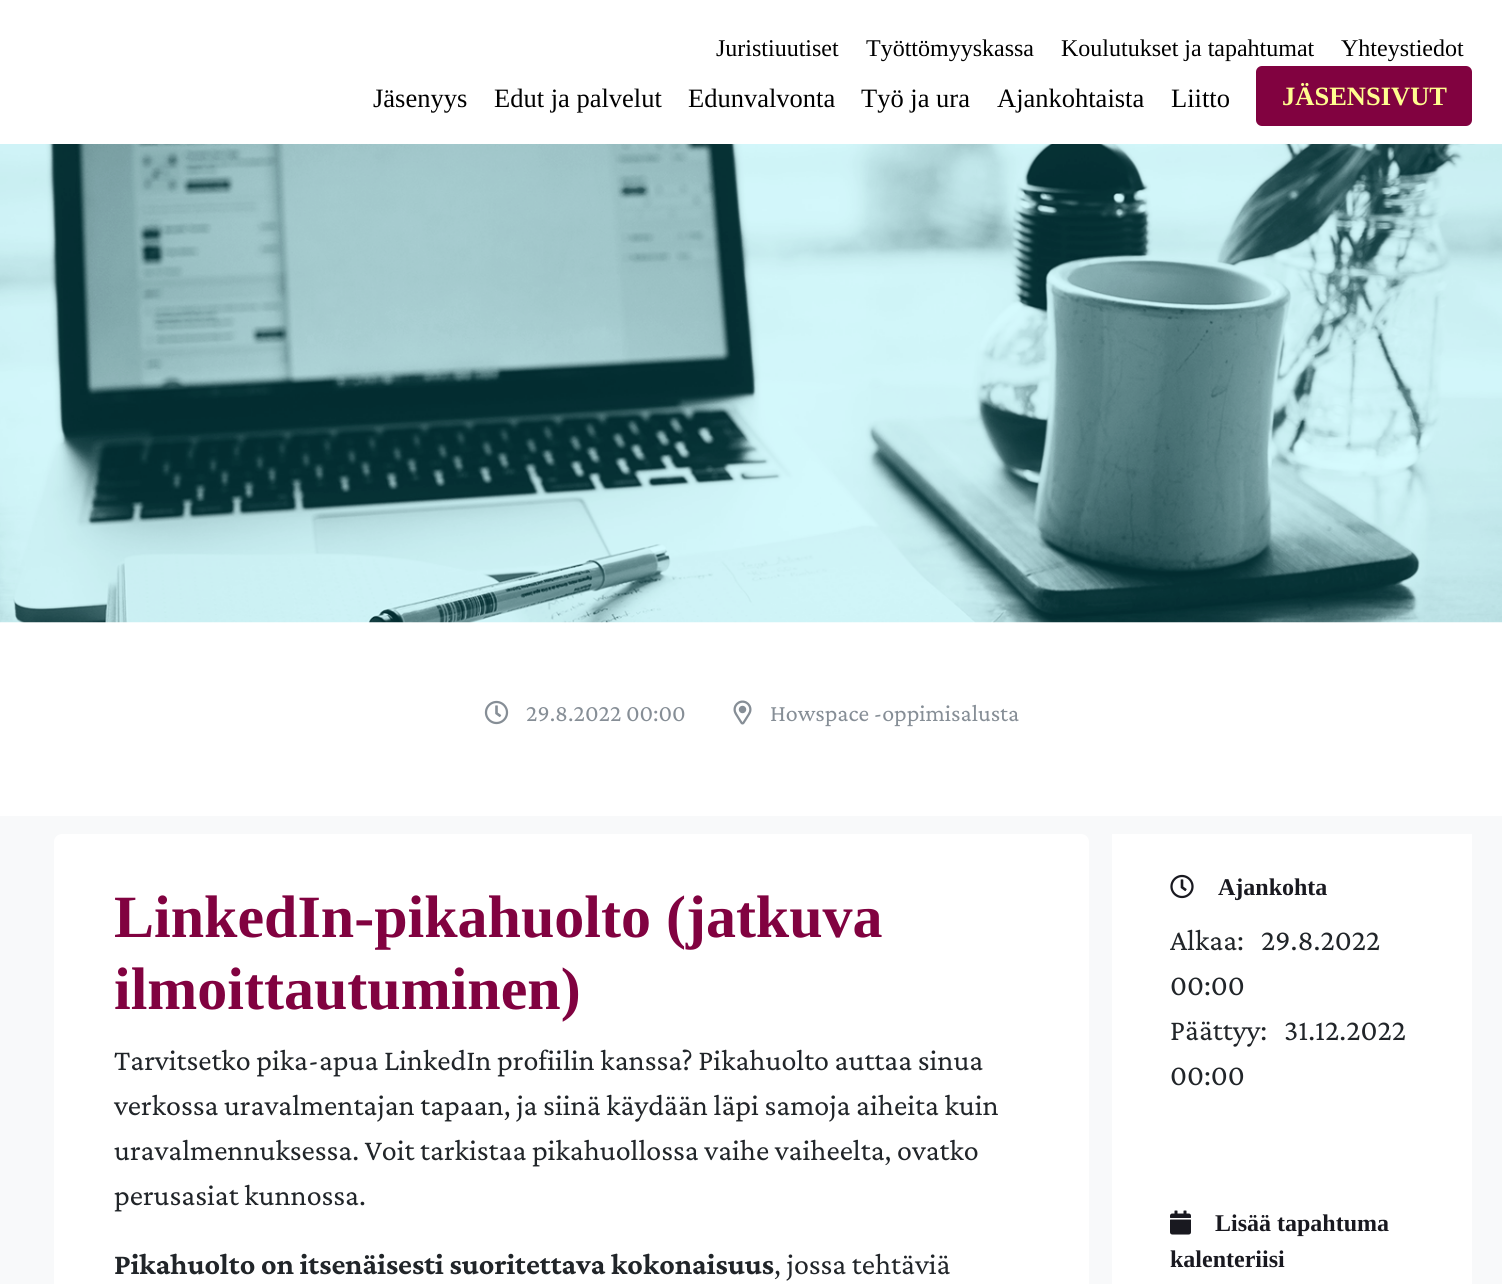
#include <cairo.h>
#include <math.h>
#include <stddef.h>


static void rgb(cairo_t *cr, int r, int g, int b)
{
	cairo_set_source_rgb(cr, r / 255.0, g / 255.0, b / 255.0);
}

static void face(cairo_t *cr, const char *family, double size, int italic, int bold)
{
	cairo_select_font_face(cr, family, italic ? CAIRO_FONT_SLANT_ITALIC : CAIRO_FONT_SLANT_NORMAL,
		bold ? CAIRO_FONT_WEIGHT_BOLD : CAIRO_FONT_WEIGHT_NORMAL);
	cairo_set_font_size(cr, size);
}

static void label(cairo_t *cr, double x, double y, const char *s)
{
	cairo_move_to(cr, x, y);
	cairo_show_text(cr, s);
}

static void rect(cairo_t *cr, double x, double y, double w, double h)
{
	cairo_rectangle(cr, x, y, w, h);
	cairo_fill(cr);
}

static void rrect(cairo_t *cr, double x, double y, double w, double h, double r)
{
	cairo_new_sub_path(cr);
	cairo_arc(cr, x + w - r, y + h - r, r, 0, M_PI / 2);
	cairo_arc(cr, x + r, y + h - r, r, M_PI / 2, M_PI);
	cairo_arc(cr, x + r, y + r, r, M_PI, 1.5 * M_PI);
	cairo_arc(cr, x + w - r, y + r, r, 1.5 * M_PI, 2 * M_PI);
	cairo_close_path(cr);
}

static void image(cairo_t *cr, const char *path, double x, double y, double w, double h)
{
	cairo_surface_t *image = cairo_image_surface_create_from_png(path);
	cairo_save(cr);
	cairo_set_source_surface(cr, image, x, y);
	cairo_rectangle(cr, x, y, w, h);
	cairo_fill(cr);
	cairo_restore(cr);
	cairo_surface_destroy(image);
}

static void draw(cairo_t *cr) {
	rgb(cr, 255, 255, 255);
	cairo_paint(cr);
	face(cr, "Liberation Serif", 24, 0, 0);
	rgb(cr, 0, 0, 0);
	label(cr, 716, 56, "Juristiuutiset");
	label(cr, 866, 56, "Työttömyyskassa");
	label(cr, 1061, 56, "Koulutukset ja tapahtumat");
	label(cr, 1341, 56, "Yhteystiedot");
	face(cr, "Liberation Serif", 26.5, 0, 0);
	label(cr, 373, 107, "Jäsenyys");
	label(cr, 494, 107, "Edut ja palvelut");
	label(cr, 688, 107, "Edunvalvonta");
	label(cr, 861, 107, "Työ ja ura");
	label(cr, 997, 107, "Ajankohtaista");
	label(cr, 1171, 107, "Liitto");
	rgb(cr, 129, 2, 64);
	rrect(cr, 1257, 67, 214, 58, 5);
	cairo_fill_preserve(cr);
	cairo_stroke(cr);
	face(cr, "Liberation Serif", 26.5, 0, 1);
	rgb(cr, 255, 253, 143);
	label(cr, 1282, 105, "JÄSENSIVUT");
	image(cr, "image0.png", 0, 144, 1502, 479);
	image(cr, "image1.png", 484, 700, 25, 25);
	face(cr, "Crimson Pro", 24, 0, 0);
	rgb(cr, 134, 142, 150);
	label(cr, 526, 721, "29.8.2022 00:00");
	image(cr, "image2.png", 733, 700, 19, 25);
	label(cr, 770, 721, "Howspace -oppimisalusta");
	rgb(cr, 248, 249, 250);
	rect(cr, 0, 816, 1502, 468);
	rgb(cr, 255, 255, 255);
	cairo_new_path(cr);
	cairo_move_to(cr, 62, 834);
	cairo_line_to(cr, 1081, 834);
	cairo_curve_to(cr, 1085.5, 834, 1089, 837.5, 1089, 842);
	cairo_line_to(cr, 1089, 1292);
	cairo_line_to(cr, 54, 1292);
	cairo_line_to(cr, 54, 842);
	cairo_curve_to(cr, 54, 837.5, 57.5, 834, 62, 834);
	cairo_close_path(cr);
	cairo_fill(cr);
	face(cr, "Liberation Serif", 60, 0, 1);
	rgb(cr, 129, 2, 64);
	label(cr, 114, 937, "LinkedIn-pikahuolto (jatkuva");
	label(cr, 114, 1009, "ilmoittautuminen)");
	face(cr, "Crimson Pro", 30, 0, 0);
	rgb(cr, 33, 37, 41);
	label(cr, 114, 1070, "Tarvitsetko pika-apua LinkedIn profiilin kanssa? Pikahuolto auttaa sinua");
	label(cr, 114, 1115, "verkossa uravalmentajan tapaan, ja siinä käydään läpi samoja aiheita kuin");
	label(cr, 114, 1160, "uravalmennuksessa. Voit tarkistaa pikahuollossa vaihe vaiheelta, ovatko");
	label(cr, 114, 1205, "perusasiat kunnossa.");
	face(cr, "Crimson Pro", 30, 0, 1);
	label(cr, 114, 1274, "Pikahuolto on itsenäisesti suoritettava kokonaisuus");
	face(cr, "Crimson Pro", 30, 0, 0);
	label(cr, 774, 1274, ", jossa tehtäviä");
	rgb(cr, 255, 255, 255);
	rect(cr, 1112, 834, 360, 450);
	image(cr, "image3.png", 1170, 874, 24, 25);
	face(cr, "Liberation Serif", 24, 0, 1);
	rgb(cr, 25, 25, 32);
	label(cr, 1218, 895, "Ajankohta");
	face(cr, "Crimson Pro", 30, 0, 0);
	rgb(cr, 33, 37, 41);
	label(cr, 1170, 950, "Alkaa:");
	label(cr, 1261, 950, "29.8.2022");
	label(cr, 1170, 995, "00:00");
	label(cr, 1170, 1040, "Päättyy:");
	label(cr, 1284, 1040, "31.12.2022");
	label(cr, 1170, 1085, "00:00");
	image(cr, "image4.png", 1170, 1210, 21, 25);
	face(cr, "Liberation Serif", 24, 0, 1);
	rgb(cr, 25, 25, 32);
	label(cr, 1215, 1231, "Lisää tapahtuma");
	label(cr, 1170, 1267, "kalenteriisi");
}

int main(void) {
	cairo_surface_t *surface = cairo_image_surface_create(CAIRO_FORMAT_RGB24, 1502, 1284);
	cairo_t *cr = cairo_create(surface);
	cairo_font_options_t *options = cairo_font_options_create();
	cairo_font_options_set_hint_metrics(options, CAIRO_HINT_METRICS_OFF);
	cairo_font_options_set_hint_style(options, CAIRO_HINT_STYLE_NONE);
	cairo_set_font_options(cr, options);
	cairo_set_miter_limit(cr, 4);
	draw(cr);
	cairo_surface_write_to_png(surface, "render.png");
	cairo_font_options_destroy(options);
	cairo_destroy(cr);
	cairo_surface_destroy(surface);
	return 0;
}
